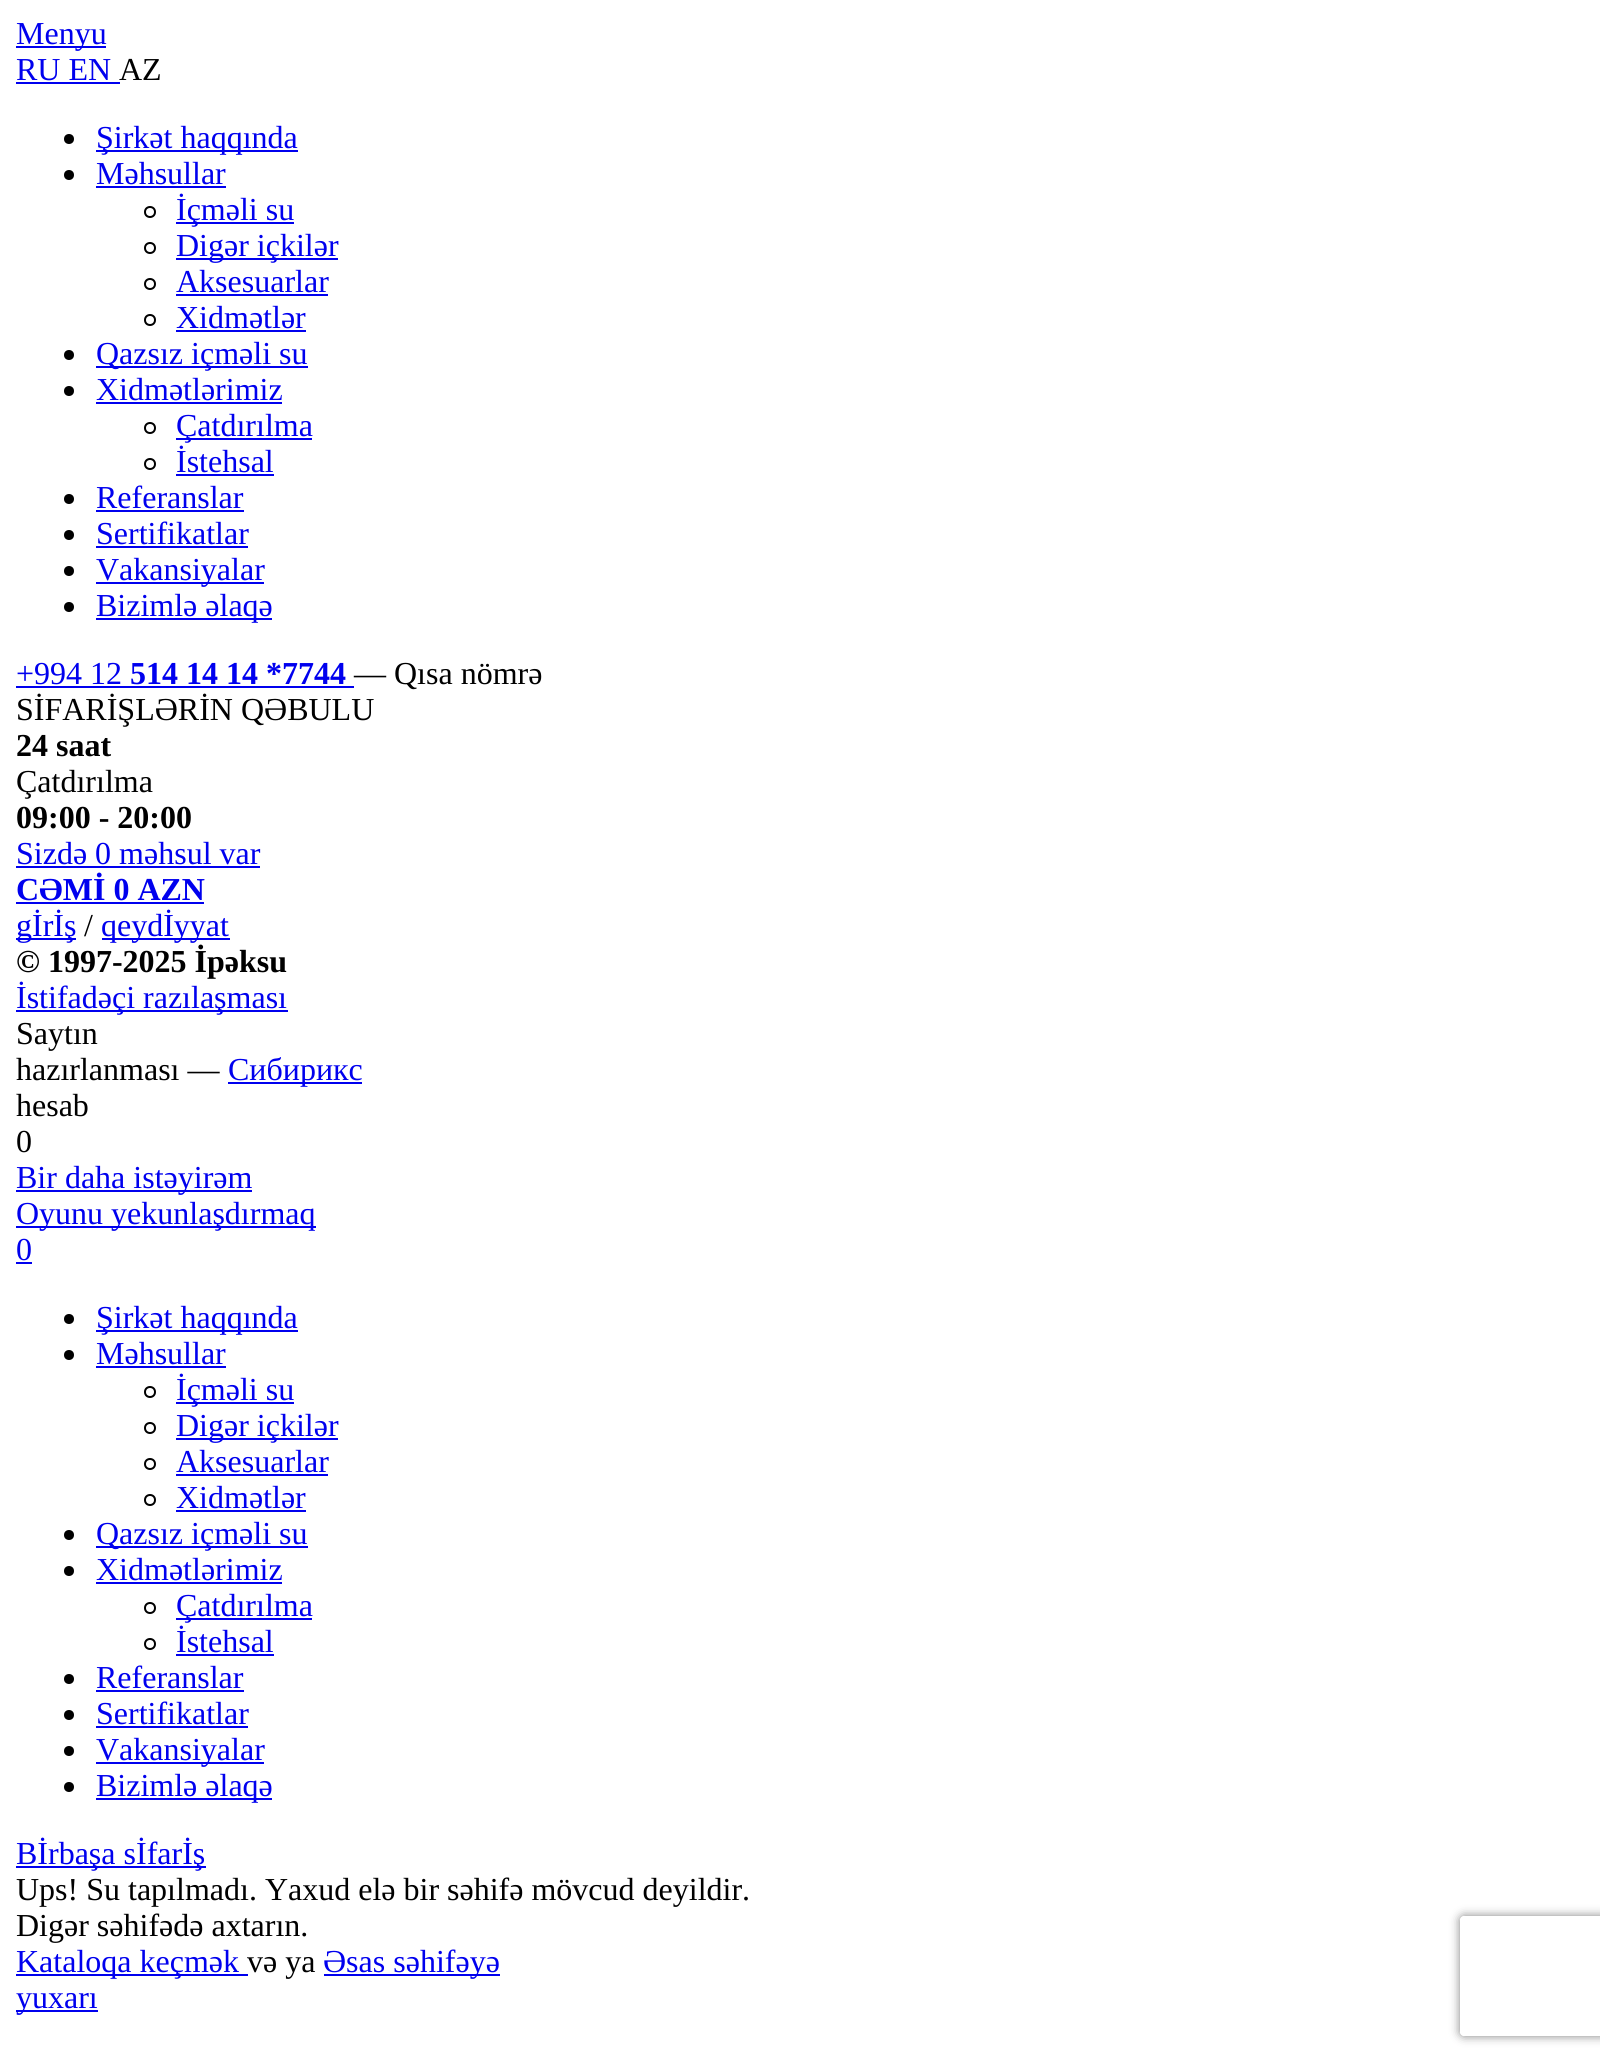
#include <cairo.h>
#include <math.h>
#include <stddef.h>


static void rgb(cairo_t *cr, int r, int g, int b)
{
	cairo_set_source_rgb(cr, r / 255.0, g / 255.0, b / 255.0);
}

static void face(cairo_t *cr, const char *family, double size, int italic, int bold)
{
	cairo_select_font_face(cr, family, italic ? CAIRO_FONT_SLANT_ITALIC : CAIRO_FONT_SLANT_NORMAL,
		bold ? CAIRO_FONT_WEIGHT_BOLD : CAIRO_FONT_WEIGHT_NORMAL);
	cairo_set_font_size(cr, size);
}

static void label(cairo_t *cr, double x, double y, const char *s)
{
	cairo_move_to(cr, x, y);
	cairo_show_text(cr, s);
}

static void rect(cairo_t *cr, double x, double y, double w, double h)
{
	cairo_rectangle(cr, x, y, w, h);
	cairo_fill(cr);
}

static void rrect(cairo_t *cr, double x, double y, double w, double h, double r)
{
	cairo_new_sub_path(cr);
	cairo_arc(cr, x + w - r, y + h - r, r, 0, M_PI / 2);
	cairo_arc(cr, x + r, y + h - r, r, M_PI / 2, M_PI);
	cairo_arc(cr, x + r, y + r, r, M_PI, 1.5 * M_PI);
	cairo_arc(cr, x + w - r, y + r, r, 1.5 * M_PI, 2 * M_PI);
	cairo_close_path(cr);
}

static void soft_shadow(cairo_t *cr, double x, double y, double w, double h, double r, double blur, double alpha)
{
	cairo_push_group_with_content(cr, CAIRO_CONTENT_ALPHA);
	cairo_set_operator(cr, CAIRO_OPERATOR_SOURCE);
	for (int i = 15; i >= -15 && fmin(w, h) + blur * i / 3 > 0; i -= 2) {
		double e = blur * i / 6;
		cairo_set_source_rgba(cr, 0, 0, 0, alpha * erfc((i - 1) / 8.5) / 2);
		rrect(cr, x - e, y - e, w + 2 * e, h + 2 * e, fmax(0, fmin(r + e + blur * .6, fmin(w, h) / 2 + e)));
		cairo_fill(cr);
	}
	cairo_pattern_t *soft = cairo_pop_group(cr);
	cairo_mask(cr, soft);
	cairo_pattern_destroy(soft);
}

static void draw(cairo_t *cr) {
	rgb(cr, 255, 255, 255);
	cairo_paint(cr);
	rgb(cr, 0, 0, 238);
	rect(cr, 16, 46, 90, 2);
	face(cr, "Liberation Serif", 32, 0, 0);
	label(cr, 16, 44, "Menyu");
	label(cr, 16, 80, "RU EN");
	rect(cr, 16, 82, 104, 2);
	rgb(cr, 0, 0, 0);
	label(cr, 119, 80, "AZ");
	cairo_new_path(cr);
	cairo_arc(cr, 69, 139, 5, 0, 2 * M_PI);
	cairo_fill(cr);
	rgb(cr, 0, 0, 238);
	rect(cr, 96, 150, 202, 2);
	label(cr, 96, 148, "Şirkət haqqında");
	rgb(cr, 0, 0, 0);
	cairo_new_path(cr);
	cairo_arc(cr, 69, 175, 5, 0, 2 * M_PI);
	cairo_fill(cr);
	rgb(cr, 0, 0, 238);
	label(cr, 96, 184, "Məhsullar");
	rect(cr, 96, 186, 130, 2);
	cairo_new_path(cr);
	cairo_arc(cr, 150, 212, 5, 0, 2 * M_PI);
	rgb(cr, 0, 0, 0);
	cairo_stroke(cr);
	rgb(cr, 0, 0, 238);
	rect(cr, 176, 222, 118, 2);
	label(cr, 176, 220, "İçməli su");
	cairo_new_path(cr);
	cairo_arc(cr, 150, 248, 5, 0, 2 * M_PI);
	rgb(cr, 0, 0, 0);
	cairo_stroke(cr);
	rgb(cr, 0, 0, 238);
	rect(cr, 176, 258, 162, 2);
	label(cr, 176, 256, "Digər içkilər");
	cairo_new_path(cr);
	cairo_arc(cr, 150, 284, 5, 0, 2 * M_PI);
	rgb(cr, 0, 0, 0);
	cairo_stroke(cr);
	rgb(cr, 0, 0, 238);
	label(cr, 176, 292, "Aksesuarlar");
	rect(cr, 176, 294, 152, 2);
	cairo_new_path(cr);
	cairo_arc(cr, 150, 320, 5, 0, 2 * M_PI);
	rgb(cr, 0, 0, 0);
	cairo_stroke(cr);
	rgb(cr, 0, 0, 238);
	label(cr, 176, 328, "Xidmətlər");
	rect(cr, 176, 330, 130, 2);
	rgb(cr, 0, 0, 0);
	cairo_new_path(cr);
	cairo_arc(cr, 69, 355, 5, 0, 2 * M_PI);
	cairo_fill(cr);
	rgb(cr, 0, 0, 238);
	rect(cr, 96, 366, 212, 2);
	label(cr, 96, 364, "Qazsız içməli su");
	rgb(cr, 0, 0, 0);
	cairo_new_path(cr);
	cairo_arc(cr, 69, 391, 5, 0, 2 * M_PI);
	cairo_fill(cr);
	rgb(cr, 0, 0, 238);
	label(cr, 96, 400, "Xidmətlərimiz");
	rect(cr, 96, 402, 186, 2);
	cairo_new_path(cr);
	cairo_arc(cr, 150, 428, 5, 0, 2 * M_PI);
	rgb(cr, 0, 0, 0);
	cairo_stroke(cr);
	rgb(cr, 0, 0, 238);
	rect(cr, 176, 438, 136, 2);
	label(cr, 176, 436, "Çatdırılma");
	cairo_new_path(cr);
	cairo_arc(cr, 150, 464, 5, 0, 2 * M_PI);
	rgb(cr, 0, 0, 0);
	cairo_stroke(cr);
	rgb(cr, 0, 0, 238);
	label(cr, 176, 472, "İstehsal");
	rect(cr, 176, 474, 98, 2);
	rgb(cr, 0, 0, 0);
	cairo_new_path(cr);
	cairo_arc(cr, 69, 499, 5, 0, 2 * M_PI);
	cairo_fill(cr);
	rgb(cr, 0, 0, 238);
	label(cr, 96, 508, "Referanslar");
	rect(cr, 96, 510, 148, 2);
	rgb(cr, 0, 0, 0);
	cairo_new_path(cr);
	cairo_arc(cr, 69, 535, 5, 0, 2 * M_PI);
	cairo_fill(cr);
	rgb(cr, 0, 0, 238);
	label(cr, 96, 544, "Sertifikatlar");
	rect(cr, 96, 546, 152, 2);
	rgb(cr, 0, 0, 0);
	cairo_new_path(cr);
	cairo_arc(cr, 69, 571, 5, 0, 2 * M_PI);
	cairo_fill(cr);
	rgb(cr, 0, 0, 238);
	rect(cr, 96, 582, 168, 2);
	label(cr, 96, 580, "Vakansiyalar");
	rgb(cr, 0, 0, 0);
	cairo_new_path(cr);
	cairo_arc(cr, 69, 607, 5, 0, 2 * M_PI);
	cairo_fill(cr);
	rgb(cr, 0, 0, 238);
	rect(cr, 96, 618, 176, 2);
	label(cr, 96, 616, "Bizimlə əlaqə");
	label(cr, 16, 684, "+994 12");
	rect(cr, 16, 686, 338, 2);
	face(cr, "Liberation Serif", 32, 0, 1);
	label(cr, 130, 684, "514 14 14 *7744");
	face(cr, "Liberation Serif", 32, 0, 0);
	rgb(cr, 0, 0, 0);
	label(cr, 354, 684, "— Qısa nömrə");
	label(cr, 16, 720, "SİFARİŞLƏRİN QƏBULU");
	face(cr, "Liberation Serif", 32, 0, 1);
	label(cr, 16, 756, "24 saat");
	face(cr, "Liberation Serif", 32, 0, 0);
	label(cr, 16, 792, "Çatdırılma");
	face(cr, "Liberation Serif", 32, 0, 1);
	label(cr, 16, 828, "09:00 - 20:00");
	face(cr, "Liberation Serif", 32, 0, 0);
	rgb(cr, 0, 0, 238);
	label(cr, 16, 864, "Sizdə 0 məhsul var");
	rect(cr, 16, 866, 244, 2);
	face(cr, "Liberation Serif", 32, 0, 1);
	label(cr, 16, 900, "CƏMİ 0 AZN");
	rect(cr, 16, 902, 188, 2);
	rect(cr, 16, 938, 60, 2);
	face(cr, "Liberation Serif", 32, 0, 0);
	label(cr, 16, 936, "gİrİş");
	rgb(cr, 0, 0, 0);
	label(cr, 84, 936, "/");
	rgb(cr, 0, 0, 238);
	rect(cr, 102, 938, 128, 2);
	label(cr, 101, 936, "qeydİyyat");
	face(cr, "Liberation Serif", 32, 0, 1);
	rgb(cr, 0, 0, 0);
	label(cr, 16, 972, "© 1997-2025 İpəksu");
	rgb(cr, 0, 0, 238);
	rect(cr, 16, 1010, 272, 2);
	face(cr, "Liberation Serif", 32, 0, 0);
	label(cr, 16, 1008, "İstifadəçi razılaşması");
	rgb(cr, 0, 0, 0);
	label(cr, 16, 1044, "Saytın");
	label(cr, 16, 1080, "hazırlanması —");
	rgb(cr, 0, 0, 238);
	rect(cr, 228, 1082, 134, 2);
	label(cr, 228, 1080, "Сибирикс");
	rgb(cr, 0, 0, 0);
	label(cr, 16, 1116, "hesab");
	label(cr, 16, 1152, "0");
	rgb(cr, 0, 0, 238);
	rect(cr, 16, 1190, 236, 2);
	label(cr, 16, 1188, "Bir daha istəyirəm");
	rect(cr, 16, 1226, 300, 2);
	label(cr, 16, 1224, "Oyunu yekunlaşdırmaq");
	label(cr, 16, 1260, "0");
	rect(cr, 16, 1262, 16, 2);
	rgb(cr, 0, 0, 0);
	cairo_new_path(cr);
	cairo_arc(cr, 69, 1319, 5, 0, 2 * M_PI);
	cairo_fill(cr);
	rgb(cr, 0, 0, 238);
	rect(cr, 96, 1330, 202, 2);
	label(cr, 96, 1328, "Şirkət haqqında");
	rgb(cr, 0, 0, 0);
	cairo_new_path(cr);
	cairo_arc(cr, 69, 1355, 5, 0, 2 * M_PI);
	cairo_fill(cr);
	rgb(cr, 0, 0, 238);
	label(cr, 96, 1364, "Məhsullar");
	rect(cr, 96, 1366, 130, 2);
	cairo_new_path(cr);
	cairo_arc(cr, 150, 1392, 5, 0, 2 * M_PI);
	rgb(cr, 0, 0, 0);
	cairo_stroke(cr);
	rgb(cr, 0, 0, 238);
	rect(cr, 176, 1402, 118, 2);
	label(cr, 176, 1400, "İçməli su");
	cairo_new_path(cr);
	cairo_arc(cr, 150, 1428, 5, 0, 2 * M_PI);
	rgb(cr, 0, 0, 0);
	cairo_stroke(cr);
	rgb(cr, 0, 0, 238);
	rect(cr, 176, 1438, 162, 2);
	label(cr, 176, 1436, "Digər içkilər");
	cairo_new_path(cr);
	cairo_arc(cr, 150, 1464, 5, 0, 2 * M_PI);
	rgb(cr, 0, 0, 0);
	cairo_stroke(cr);
	rgb(cr, 0, 0, 238);
	label(cr, 176, 1472, "Aksesuarlar");
	rect(cr, 176, 1474, 152, 2);
	cairo_new_path(cr);
	cairo_arc(cr, 150, 1500, 5, 0, 2 * M_PI);
	rgb(cr, 0, 0, 0);
	cairo_stroke(cr);
	rgb(cr, 0, 0, 238);
	label(cr, 176, 1508, "Xidmətlər");
	rect(cr, 176, 1510, 130, 2);
	rgb(cr, 0, 0, 0);
	cairo_new_path(cr);
	cairo_arc(cr, 69, 1535, 5, 0, 2 * M_PI);
	cairo_fill(cr);
	rgb(cr, 0, 0, 238);
	rect(cr, 96, 1546, 212, 2);
	label(cr, 96, 1544, "Qazsız içməli su");
	rgb(cr, 0, 0, 0);
	cairo_new_path(cr);
	cairo_arc(cr, 69, 1571, 5, 0, 2 * M_PI);
	cairo_fill(cr);
	rgb(cr, 0, 0, 238);
	label(cr, 96, 1580, "Xidmətlərimiz");
	rect(cr, 96, 1582, 186, 2);
	cairo_new_path(cr);
	cairo_arc(cr, 150, 1608, 5, 0, 2 * M_PI);
	rgb(cr, 0, 0, 0);
	cairo_stroke(cr);
	rgb(cr, 0, 0, 238);
	rect(cr, 176, 1618, 136, 2);
	label(cr, 176, 1616, "Çatdırılma");
	cairo_new_path(cr);
	cairo_arc(cr, 150, 1644, 5, 0, 2 * M_PI);
	rgb(cr, 0, 0, 0);
	cairo_stroke(cr);
	rgb(cr, 0, 0, 238);
	label(cr, 176, 1652, "İstehsal");
	rect(cr, 176, 1654, 98, 2);
	rgb(cr, 0, 0, 0);
	cairo_new_path(cr);
	cairo_arc(cr, 69, 1679, 5, 0, 2 * M_PI);
	cairo_fill(cr);
	rgb(cr, 0, 0, 238);
	label(cr, 96, 1688, "Referanslar");
	rect(cr, 96, 1690, 148, 2);
	rgb(cr, 0, 0, 0);
	cairo_new_path(cr);
	cairo_arc(cr, 69, 1715, 5, 0, 2 * M_PI);
	cairo_fill(cr);
	rgb(cr, 0, 0, 238);
	label(cr, 96, 1724, "Sertifikatlar");
	rect(cr, 96, 1726, 152, 2);
	rgb(cr, 0, 0, 0);
	cairo_new_path(cr);
	cairo_arc(cr, 69, 1751, 5, 0, 2 * M_PI);
	cairo_fill(cr);
	rgb(cr, 0, 0, 238);
	rect(cr, 96, 1762, 168, 2);
	label(cr, 96, 1760, "Vakansiyalar");
	rgb(cr, 0, 0, 0);
	cairo_new_path(cr);
	cairo_arc(cr, 69, 1787, 5, 0, 2 * M_PI);
	cairo_fill(cr);
	rgb(cr, 0, 0, 238);
	rect(cr, 96, 1798, 176, 2);
	label(cr, 96, 1796, "Bizimlə əlaqə");
	rect(cr, 16, 1866, 190, 2);
	label(cr, 16, 1864, "Bİrbaşa sİfarİş");
	rgb(cr, 0, 0, 0);
	label(cr, 16, 1900, "Ups! Su tapılmadı. Yaxud elə bir səhifə mövcud deyildir.");
	label(cr, 16, 1936, "Digər səhifədə axtarın.");
	rgb(cr, 0, 0, 238);
	rect(cr, 16, 1974, 232, 2);
	label(cr, 16, 1972, "Kataloqa keçmək");
	rgb(cr, 0, 0, 0);
	label(cr, 247, 1972, "və ya");
	rgb(cr, 0, 0, 238);
	rect(cr, 324, 1974, 176, 2);
	label(cr, 323, 1972, "Əsas səhifəyə");
	cairo_save(cr);
	cairo_set_fill_rule(cr, CAIRO_FILL_RULE_EVEN_ODD);
	cairo_new_path(cr);
	cairo_move_to(cr, 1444, 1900);
	cairo_line_to(cr, 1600, 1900);
	cairo_line_to(cr, 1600, 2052);
	cairo_line_to(cr, 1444, 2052);
	cairo_close_path(cr);
	cairo_move_to(cr, 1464, 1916);
	cairo_line_to(cr, 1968, 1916);
	cairo_curve_to(cr, 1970, 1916, 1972, 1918, 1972, 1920);
	cairo_line_to(cr, 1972, 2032);
	cairo_curve_to(cr, 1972, 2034, 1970, 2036, 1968, 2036);
	cairo_line_to(cr, 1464, 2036);
	cairo_curve_to(cr, 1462, 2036, 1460, 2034, 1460, 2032);
	cairo_line_to(cr, 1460, 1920);
	cairo_curve_to(cr, 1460, 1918, 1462, 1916, 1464, 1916);
	cairo_close_path(cr);
	cairo_clip(cr);
	rgb(cr, 128, 128, 128);
	soft_shadow(cr, 1460, 1916, 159, 120, 4, 5, 1);
	cairo_restore(cr);
	rect(cr, 16, 2010, 82, 2);
	label(cr, 16, 2008, "yuxarı");
}

int main(void) {
	cairo_surface_t *surface = cairo_image_surface_create(CAIRO_FORMAT_RGB24, 1600, 2063);
	cairo_t *cr = cairo_create(surface);
	cairo_font_options_t *options = cairo_font_options_create();
	cairo_font_options_set_hint_metrics(options, CAIRO_HINT_METRICS_OFF);
	cairo_font_options_set_hint_style(options, CAIRO_HINT_STYLE_NONE);
	cairo_set_font_options(cr, options);
	cairo_set_miter_limit(cr, 4);
	draw(cr);
	cairo_surface_write_to_png(surface, "render.png");
	cairo_font_options_destroy(options);
	cairo_destroy(cr);
	cairo_surface_destroy(surface);
	return 0;
}
